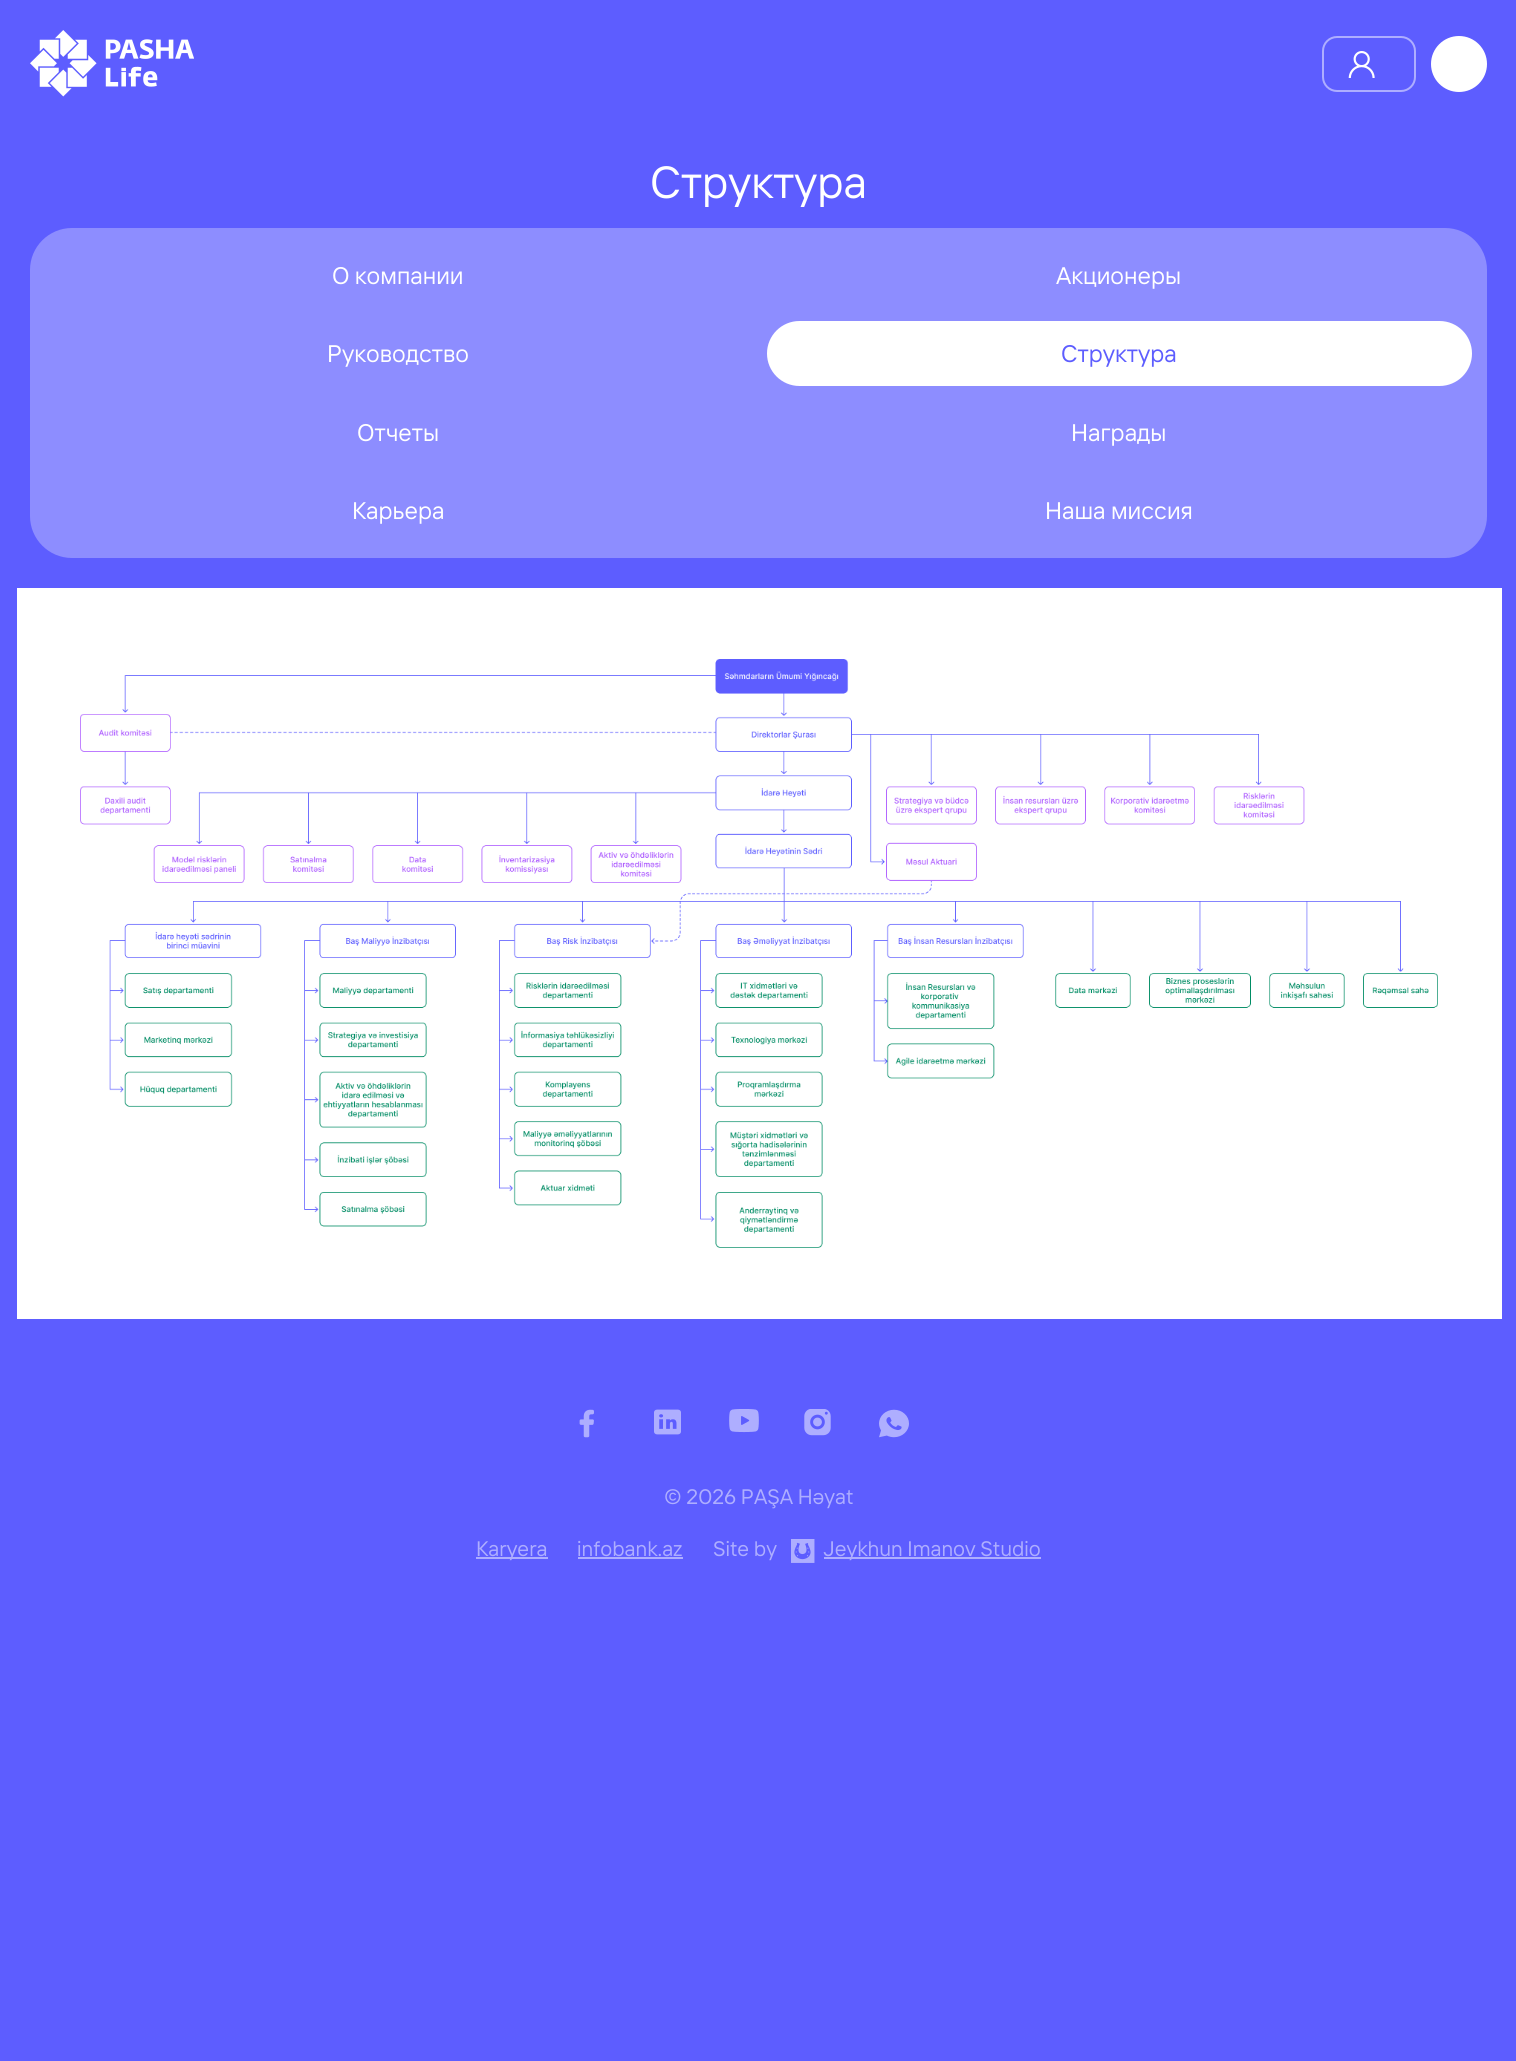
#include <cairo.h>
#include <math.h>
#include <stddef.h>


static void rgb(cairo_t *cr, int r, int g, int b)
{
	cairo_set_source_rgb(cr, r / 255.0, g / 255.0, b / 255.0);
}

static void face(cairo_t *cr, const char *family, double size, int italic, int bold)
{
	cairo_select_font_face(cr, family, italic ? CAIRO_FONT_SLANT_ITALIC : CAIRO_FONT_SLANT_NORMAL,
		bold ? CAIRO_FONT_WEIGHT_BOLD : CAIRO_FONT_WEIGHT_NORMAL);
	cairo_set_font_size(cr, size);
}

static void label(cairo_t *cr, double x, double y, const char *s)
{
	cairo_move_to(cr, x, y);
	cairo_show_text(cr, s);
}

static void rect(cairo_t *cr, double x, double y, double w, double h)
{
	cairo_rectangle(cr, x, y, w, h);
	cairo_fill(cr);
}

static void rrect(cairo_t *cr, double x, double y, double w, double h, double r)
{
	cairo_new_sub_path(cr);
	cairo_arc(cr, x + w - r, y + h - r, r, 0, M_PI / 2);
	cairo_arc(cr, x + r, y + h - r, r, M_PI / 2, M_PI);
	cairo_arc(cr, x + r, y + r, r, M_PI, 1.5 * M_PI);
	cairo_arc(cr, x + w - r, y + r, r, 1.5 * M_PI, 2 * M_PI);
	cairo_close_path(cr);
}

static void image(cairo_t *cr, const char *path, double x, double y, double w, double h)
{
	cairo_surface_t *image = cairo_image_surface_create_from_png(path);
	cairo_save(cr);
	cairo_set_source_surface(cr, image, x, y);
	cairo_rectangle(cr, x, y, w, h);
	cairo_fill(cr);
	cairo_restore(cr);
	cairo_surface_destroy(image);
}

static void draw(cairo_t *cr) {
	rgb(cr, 93, 93, 255);
	cairo_paint(cr);
	image(cr, "image0.png", 30, 30, 164, 67);
	rrect(cr, 1323, 37, 92, 54, 14);
	rgb(cr, 174, 174, 255);
	cairo_stroke(cr);
	image(cr, "image1.png", 1348, 51, 27, 27);
	rgb(cr, 255, 255, 255);
	cairo_arc(cr, 1459, 64, 28, 0, 2 * M_PI);
	cairo_fill(cr);
	face(cr, "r", 45, 0, 0);
	label(cr, 650, 198, "Структура");
	rgb(cr, 141, 141, 255);
	rrect(cr, 30, 228, 1457, 330, 42);
	cairo_fill(cr);
	face(cr, "r", 24, 0, 0);
	rgb(cr, 255, 255, 255);
	label(cr, 332, 284, "О компании");
	label(cr, 1056, 284, "Акционеры");
	label(cr, 327, 362, "Руководство");
	rrect(cr, 767, 321, 705, 65, 32.5);
	cairo_fill(cr);
	rgb(cr, 93, 93, 255);
	label(cr, 1061, 362, "Структура");
	rgb(cr, 255, 255, 255);
	label(cr, 357, 441, "Отчеты");
	label(cr, 1071, 441, "Награды");
	label(cr, 352, 519, "Карьера");
	label(cr, 1045, 519, "Наша миссия");
	rect(cr, 17, 588, 1485, 731);
	image(cr, "image2.png", 80, 659, 1358, 589);
	image(cr, "image3.png", 579, 1409, 15, 29);
	image(cr, "image4.png", 654, 1409, 27, 26);
	image(cr, "image5.png", 729, 1409, 30, 24);
	image(cr, "image6.png", 804, 1409, 27, 27);
	image(cr, "image7.png", 879, 1409, 30, 29);
	face(cr, "r", 21, 0, 0);
	rgb(cr, 174, 174, 255);
	label(cr, 664, 1504, "© 2026 PAŞA Həyat");
	rect(cr, 476, 1557, 72, 2);
	label(cr, 476, 1556, "Karyera");
	label(cr, 577, 1556, "infobank.az");
	rect(cr, 578, 1557, 105, 2);
	label(cr, 713, 1556, "Site by");
	image(cr, "image8.png", 791, 1539, 24, 24);
	rect(cr, 824, 1557, 217, 2);
	label(cr, 823, 1556, "Jeykhun Imanov Studio");
}

int main(void) {
	cairo_surface_t *surface = cairo_image_surface_create(CAIRO_FORMAT_RGB24, 1516, 2061);
	cairo_t *cr = cairo_create(surface);
	cairo_font_options_t *options = cairo_font_options_create();
	cairo_font_options_set_hint_metrics(options, CAIRO_HINT_METRICS_OFF);
	cairo_font_options_set_hint_style(options, CAIRO_HINT_STYLE_NONE);
	cairo_set_font_options(cr, options);
	cairo_set_miter_limit(cr, 4);
	draw(cr);
	cairo_surface_write_to_png(surface, "render.png");
	cairo_font_options_destroy(options);
	cairo_destroy(cr);
	cairo_surface_destroy(surface);
	return 0;
}
